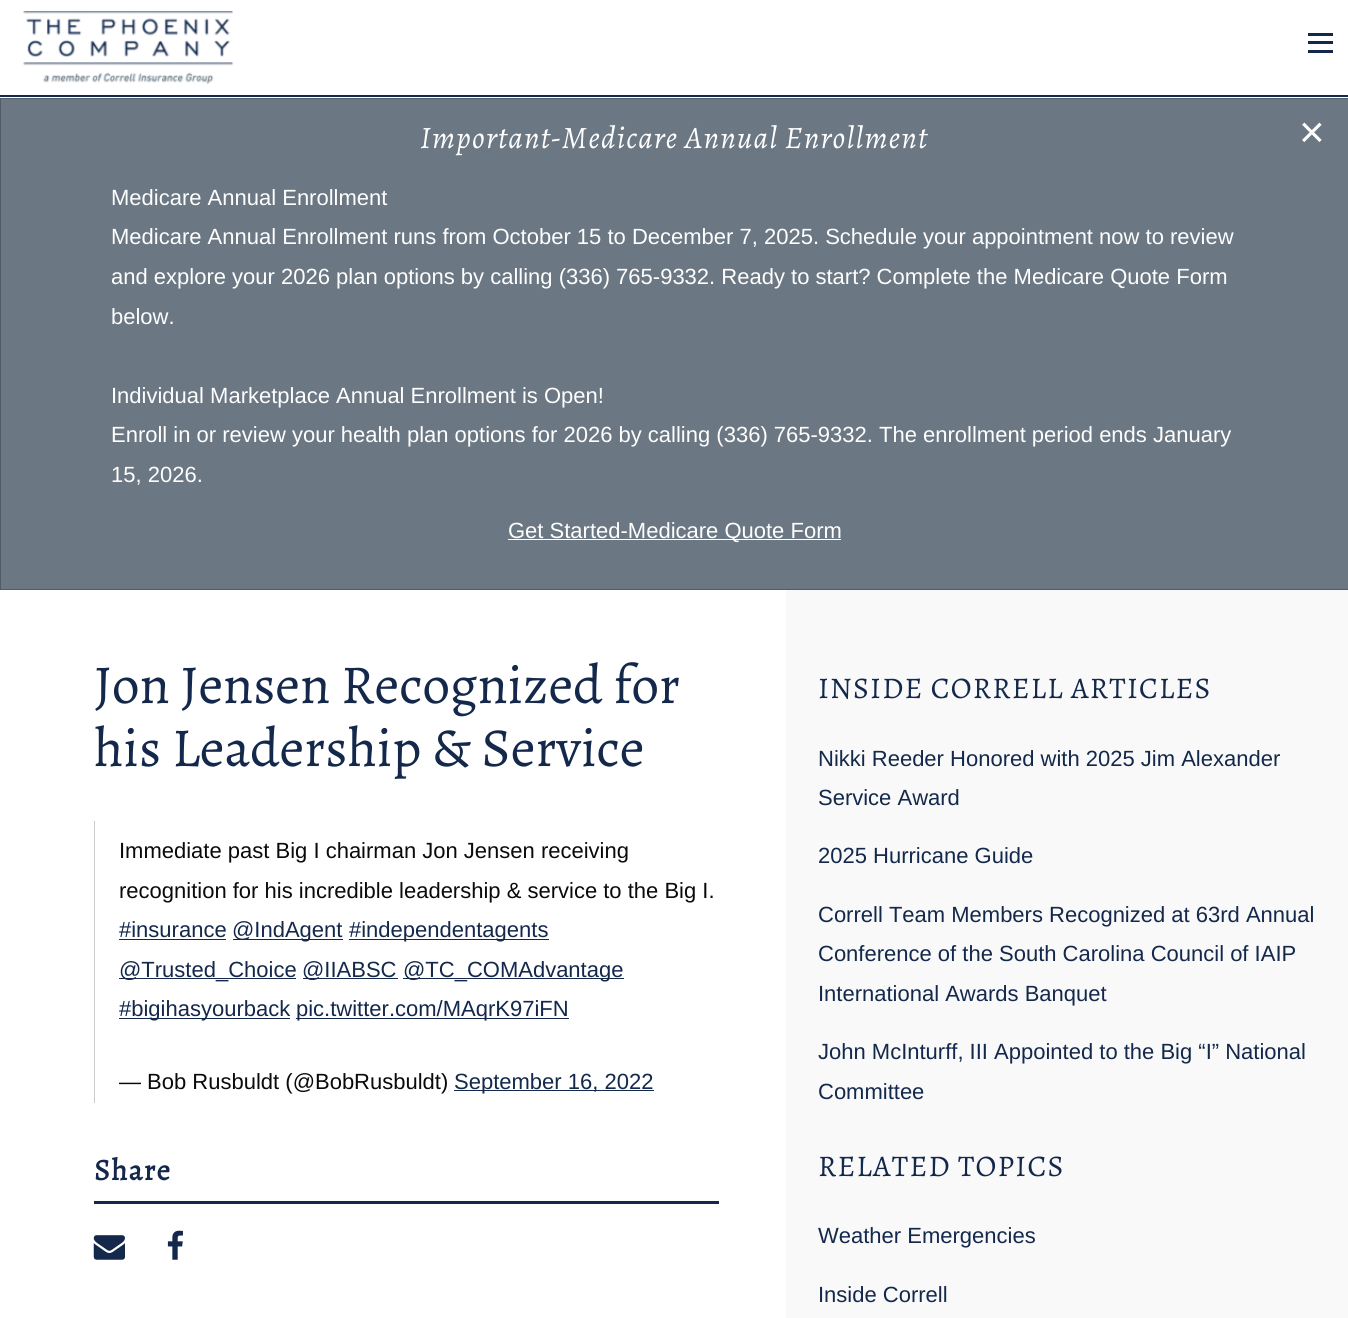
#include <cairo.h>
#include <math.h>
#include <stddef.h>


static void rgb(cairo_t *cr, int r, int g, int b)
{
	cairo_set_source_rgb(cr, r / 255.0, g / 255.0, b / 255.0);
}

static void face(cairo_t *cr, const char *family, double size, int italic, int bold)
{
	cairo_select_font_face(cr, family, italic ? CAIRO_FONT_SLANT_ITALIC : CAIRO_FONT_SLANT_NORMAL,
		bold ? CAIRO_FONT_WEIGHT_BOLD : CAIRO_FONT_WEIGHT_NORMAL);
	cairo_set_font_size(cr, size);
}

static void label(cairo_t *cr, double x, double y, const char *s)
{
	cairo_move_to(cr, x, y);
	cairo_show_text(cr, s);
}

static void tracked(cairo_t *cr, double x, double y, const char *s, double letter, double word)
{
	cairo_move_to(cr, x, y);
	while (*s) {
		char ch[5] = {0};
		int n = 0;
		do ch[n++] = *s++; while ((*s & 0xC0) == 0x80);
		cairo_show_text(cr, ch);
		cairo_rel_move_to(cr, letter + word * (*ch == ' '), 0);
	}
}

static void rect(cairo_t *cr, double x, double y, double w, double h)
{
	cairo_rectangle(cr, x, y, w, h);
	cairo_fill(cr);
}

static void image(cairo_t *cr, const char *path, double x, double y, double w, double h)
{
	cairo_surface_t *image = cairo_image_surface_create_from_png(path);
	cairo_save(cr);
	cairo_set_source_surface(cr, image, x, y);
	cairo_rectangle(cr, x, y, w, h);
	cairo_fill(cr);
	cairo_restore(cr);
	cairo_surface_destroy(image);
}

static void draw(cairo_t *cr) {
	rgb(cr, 255, 255, 255);
	cairo_paint(cr);
	rgb(cr, 19, 40, 75);
	rect(cr, 0, 95, 1348, 2);
	image(cr, "image0.png", 23, 11, 210, 73);
	rect(cr, 1308, 50, 25, 3);
	rect(cr, 1308, 41, 25, 3);
	rect(cr, 1308, 33, 25, 3);
	rgb(cr, 107, 119, 131);
	cairo_rectangle(cr, 0.5, 98.5, 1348, 491);
	cairo_fill_preserve(cr);
	rgb(cr, 83, 92, 101);
	cairo_set_line_width(cr, 1);
	cairo_stroke(cr);
	face(cr, "Alegreya", 31.25, 1, 0);
	rgb(cr, 254, 254, 254);
	tracked(cr, 420, 148, "Important-Medicare Annual Enrollment", 1.25, 0);
	face(cr, "Liberation Sans", 44, 0, 0);
	tracked(cr, 1299, 147, "×", 1.25, 0);
	face(cr, "Liberation Sans", 22, 0, 0);
	label(cr, 111, 205, "Medicare Annual Enrollment");
	label(cr, 111, 244, "Medicare Annual Enrollment runs from October 15 to December 7, 2025. Schedule your appointment now to review");
	label(cr, 111, 284, "and explore your 2026 plan options by calling (336) 765-9332. Ready to start? Complete the Medicare Quote Form");
	label(cr, 111, 324, "below.");
	label(cr, 111, 403, "Individual Marketplace Annual Enrollment is Open!");
	label(cr, 111, 442, "Enroll in or review your health plan options for 2026 by calling (336) 765-9332. The enrollment period ends January");
	label(cr, 111, 482, "15, 2026.");
	rect(cr, 508, 539, 333, 1);
	label(cr, 508, 538, "Get Started-Medicare Quote Form");
	face(cr, "Alegreya", 55, 0, 0);
	rgb(cr, 19, 40, 75);
	label(cr, 94, 703, "Jon Jensen Recognized for");
	label(cr, 94, 766, "his Leadership & Service");
	rgb(cr, 202, 202, 202);
	rect(cr, 94, 821, 1, 282);
	face(cr, "Liberation Sans", 22, 0, 0);
	rgb(cr, 10, 10, 10);
	label(cr, 119, 858, "Immediate past Big I chairman Jon Jensen receiving");
	label(cr, 119, 898, "recognition for his incredible leadership & service to the Big I.");
	rgb(cr, 19, 40, 75);
	label(cr, 119, 937, "#insurance");
	rect(cr, 119, 939, 107, 1);
	rect(cr, 233, 939, 110, 1);
	label(cr, 232, 937, "@IndAgent");
	rect(cr, 349, 939, 200, 1);
	label(cr, 349, 937, "#independentagents");
	rect(cr, 119, 978, 177, 1);
	label(cr, 119, 977, "@Trusted_Choice");
	rect(cr, 303, 978, 95, 1);
	label(cr, 302, 977, "@IIABSC");
	rect(cr, 403, 978, 221, 1);
	label(cr, 403, 977, "@TC_COMAdvantage");
	rect(cr, 119, 1018, 171, 1);
	label(cr, 119, 1016, "#bigihasyourback");
	rect(cr, 296, 1018, 273, 1);
	label(cr, 296, 1016, "pic.twitter.com/MAqrK97iFN");
	rgb(cr, 10, 10, 10);
	label(cr, 119, 1089, "— Bob Rusbuldt (@BobRusbuldt)");
	rgb(cr, 19, 40, 75);
	rect(cr, 454, 1090, 200, 1);
	label(cr, 454, 1089, "September 16, 2022");
	rect(cr, 94, 1201, 625, 3);
	face(cr, "Alegreya", 30, 0, 1);
	tracked(cr, 94, 1180, "Share", 1.25, 0);
	image(cr, "image1.png", 93, 1235, 32, 25);
	image(cr, "image2.png", 167, 1230, 16, 30);
	rgb(cr, 249, 249, 249);
	rect(cr, 786, 590, 562, 728);
	face(cr, "Alegreya", 30, 0, 0);
	rgb(cr, 19, 40, 75);
	tracked(cr, 818, 698, "INSIDE CORRELL ARTICLES", 1.25, 0);
	face(cr, "Liberation Sans", 22, 0, 0);
	label(cr, 818, 766, "Nikki Reeder Honored with 2025 Jim Alexander");
	label(cr, 818, 805, "Service Award");
	label(cr, 818, 863, "2025 Hurricane Guide");
	label(cr, 818, 922, "Correll Team Members Recognized at 63rd Annual");
	label(cr, 818, 961, "Conference of the South Carolina Council of IAIP");
	label(cr, 818, 1001, "International Awards Banquet");
	label(cr, 818, 1059, "John McInturff, III Appointed to the Big “I” National");
	label(cr, 818, 1099, "Committee");
	face(cr, "Alegreya", 30, 0, 0);
	tracked(cr, 818, 1176, "RELATED TOPICS", 1.25, 0);
	face(cr, "Liberation Sans", 22, 0, 0);
	label(cr, 818, 1243, "Weather Emergencies");
	label(cr, 818, 1302, "Inside Correll");
}

int main(void) {
	cairo_surface_t *surface = cairo_image_surface_create(CAIRO_FORMAT_RGB24, 1348, 1318);
	cairo_t *cr = cairo_create(surface);
	cairo_font_options_t *options = cairo_font_options_create();
	cairo_font_options_set_hint_metrics(options, CAIRO_HINT_METRICS_OFF);
	cairo_font_options_set_hint_style(options, CAIRO_HINT_STYLE_NONE);
	cairo_set_font_options(cr, options);
	cairo_set_miter_limit(cr, 4);
	draw(cr);
	cairo_surface_write_to_png(surface, "render.png");
	cairo_font_options_destroy(options);
	cairo_destroy(cr);
	cairo_surface_destroy(surface);
	return 0;
}
